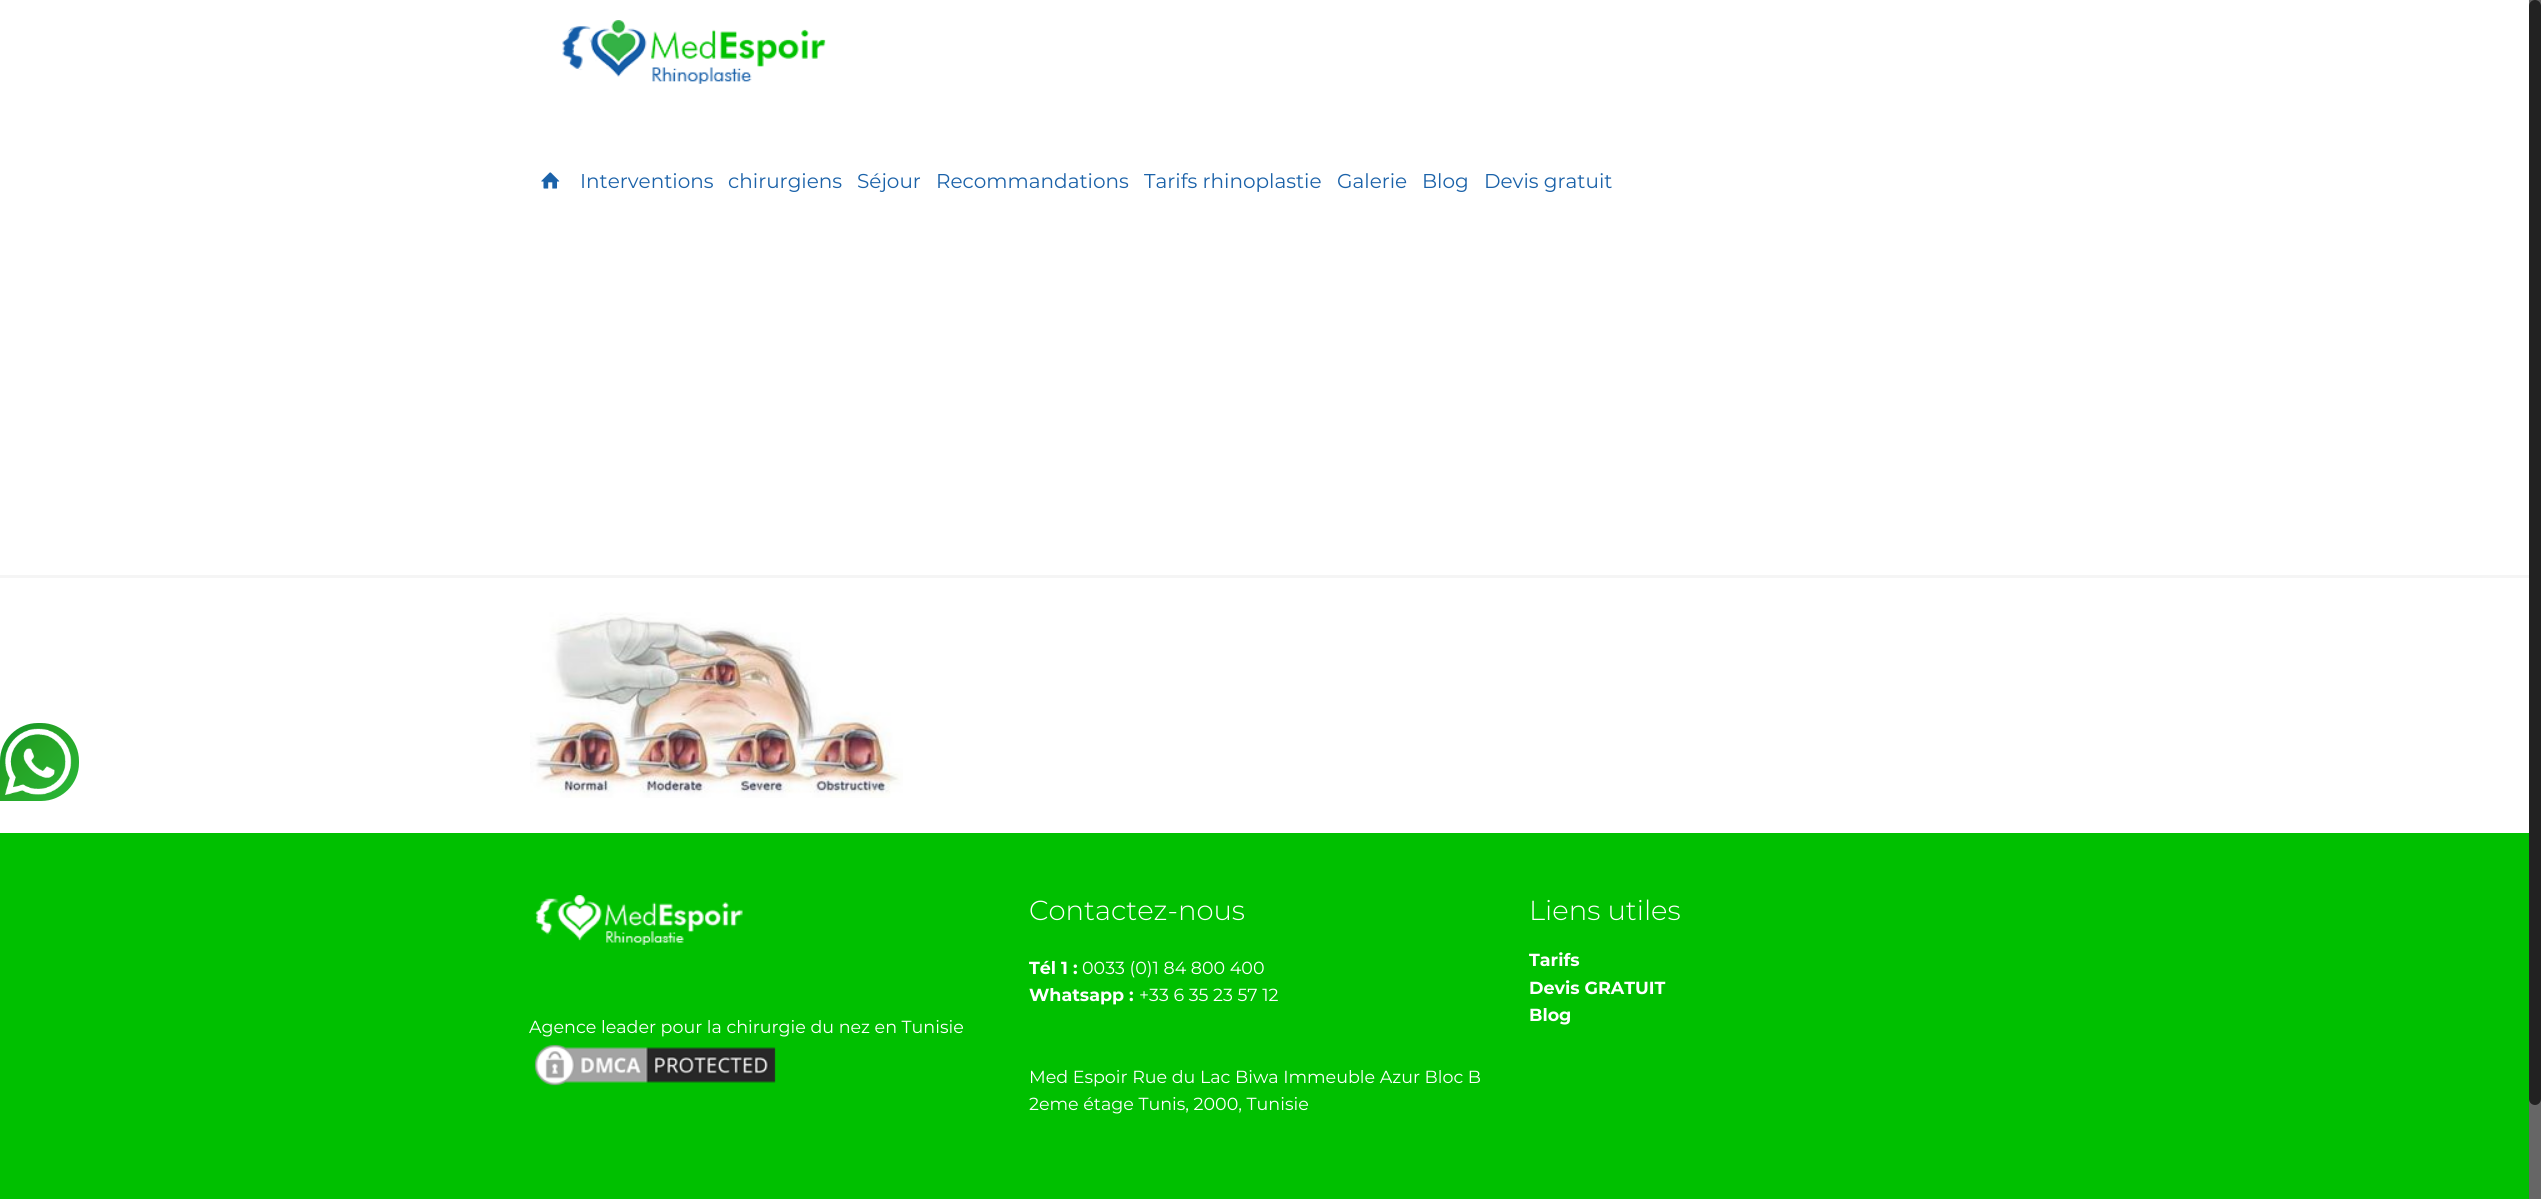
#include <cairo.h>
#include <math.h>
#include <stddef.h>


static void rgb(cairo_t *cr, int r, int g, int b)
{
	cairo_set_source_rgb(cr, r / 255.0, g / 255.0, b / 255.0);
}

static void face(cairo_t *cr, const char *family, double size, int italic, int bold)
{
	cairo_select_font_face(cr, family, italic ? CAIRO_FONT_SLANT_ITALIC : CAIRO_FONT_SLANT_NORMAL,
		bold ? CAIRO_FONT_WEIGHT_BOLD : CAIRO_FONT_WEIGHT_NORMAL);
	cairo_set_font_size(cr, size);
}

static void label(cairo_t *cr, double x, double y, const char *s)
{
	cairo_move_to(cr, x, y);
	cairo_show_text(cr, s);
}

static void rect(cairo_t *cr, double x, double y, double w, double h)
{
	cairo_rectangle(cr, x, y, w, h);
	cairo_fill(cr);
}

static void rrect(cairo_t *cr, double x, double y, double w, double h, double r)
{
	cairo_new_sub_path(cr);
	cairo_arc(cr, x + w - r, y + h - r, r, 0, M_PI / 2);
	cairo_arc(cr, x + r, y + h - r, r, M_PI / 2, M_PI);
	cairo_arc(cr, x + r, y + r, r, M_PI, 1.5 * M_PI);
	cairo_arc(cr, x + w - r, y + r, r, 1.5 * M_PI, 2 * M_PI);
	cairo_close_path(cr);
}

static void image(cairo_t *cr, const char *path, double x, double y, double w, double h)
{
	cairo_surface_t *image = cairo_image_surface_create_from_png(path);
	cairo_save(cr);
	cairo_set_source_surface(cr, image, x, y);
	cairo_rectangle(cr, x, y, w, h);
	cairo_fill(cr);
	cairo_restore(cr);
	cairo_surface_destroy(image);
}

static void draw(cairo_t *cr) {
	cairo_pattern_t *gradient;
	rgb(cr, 255, 255, 255);
	cairo_paint(cr);
	gradient = cairo_pattern_create_linear(0, 723, 79, 801);
	cairo_pattern_add_color_stop_rgba(gradient, 0, 0.059, 0.569, 0.173, 1);
	cairo_pattern_add_color_stop_rgba(gradient, 0.37, 0.145, 0.639, 0.145, 1);
	cairo_pattern_add_color_stop_rgba(gradient, 1, 0.165, 0.725, 0.224, 1);
	cairo_set_source(cr, gradient);
	cairo_pattern_destroy(gradient);
	cairo_new_path(cr);
	cairo_move_to(cr, 38, 723);
	cairo_line_to(cr, 41, 723);
	cairo_curve_to(cr, 62, 723, 79, 740, 79, 761);
	cairo_line_to(cr, 79, 763);
	cairo_curve_to(cr, 79, 784, 62, 801, 41, 801);
	cairo_line_to(cr, 0, 801);
	cairo_line_to(cr, 0, 761);
	cairo_curve_to(cr, 0, 740, 17, 723, 38, 723);
	cairo_close_path(cr);
	cairo_fill(cr);
	image(cr, "image1.png", 23, 748, 32, 30);
	image(cr, "image0.png", 5, 728, 67, 67);
	image(cr, "image2.png", 562, 20, 264, 64);
	image(cr, "image3.png", 541, 172, 19, 17);
	face(cr, "Montserrat", 20, 0, 0);
	rgb(cr, 27, 98, 169);
	label(cr, 580, 188, "Interventions");
	label(cr, 728, 188, "chirurgiens");
	label(cr, 857, 188, "Séjour");
	label(cr, 936, 188, "Recommandations");
	label(cr, 1144, 188, "Tarifs rhinoplastie");
	label(cr, 1337, 188, "Galerie");
	label(cr, 1422, 188, "Blog");
	label(cr, 1484, 188, "Devis gratuit");
	rgb(cr, 245, 245, 245);
	rect(cr, 0, 575, 2529, 3);
	image(cr, "image4.png", 530, 612, 373, 186);
	rgb(cr, 0, 192, 0);
	rect(cr, 0, 833, 2529, 366);
	image(cr, "image5.png", 534, 895, 209, 50);
	face(cr, "Montserrat", 17.5, 0, 0);
	rgb(cr, 255, 255, 255);
	label(cr, 529, 1033, "Agence leader pour la chirurgie du nez en Tunisie");
	image(cr, "image6.png", 534, 1044, 242, 42);
	face(cr, "Montserrat Light", 27.5, 0, 0);
	label(cr, 1029, 920, "Contactez-nous");
	face(cr, "Montserrat", 17.5, 0, 1);
	label(cr, 1029, 974, "Tél 1 :");
	face(cr, "Montserrat", 17.5, 0, 0);
	label(cr, 1082, 974, "0033 (0)1 84 800 400");
	face(cr, "Montserrat", 17.5, 0, 1);
	label(cr, 1029, 1001, "Whatsapp :");
	face(cr, "Montserrat", 17.5, 0, 0);
	label(cr, 1139, 1001, "+33 6 35 23 57 12");
	label(cr, 1029, 1083, "Med Espoir Rue du Lac Biwa Immeuble Azur Bloc B");
	label(cr, 1029, 1110, "2eme étage Tunis, 2000, Tunisie");
	face(cr, "Montserrat Light", 27.5, 0, 0);
	label(cr, 1529, 920, "Liens utiles");
	face(cr, "Montserrat", 17.5, 0, 1);
	label(cr, 1529, 966, "Tarifs");
	label(cr, 1529, 994, "Devis GRATUIT");
	label(cr, 1529, 1021, "Blog");
	rgb(cr, 102, 102, 102);
	rect(cr, 2529, 0, 12, 1199);
	rgb(cr, 34, 34, 34);
	rrect(cr, 2529, 0, 12, 1105, 6);
	cairo_fill(cr);
}

int main(void) {
	cairo_surface_t *surface = cairo_image_surface_create(CAIRO_FORMAT_RGB24, 2541, 1199);
	cairo_t *cr = cairo_create(surface);
	cairo_font_options_t *options = cairo_font_options_create();
	cairo_font_options_set_hint_metrics(options, CAIRO_HINT_METRICS_OFF);
	cairo_font_options_set_hint_style(options, CAIRO_HINT_STYLE_NONE);
	cairo_set_font_options(cr, options);
	cairo_set_miter_limit(cr, 4);
	draw(cr);
	cairo_surface_write_to_png(surface, "render.png");
	cairo_font_options_destroy(options);
	cairo_destroy(cr);
	cairo_surface_destroy(surface);
	return 0;
}
